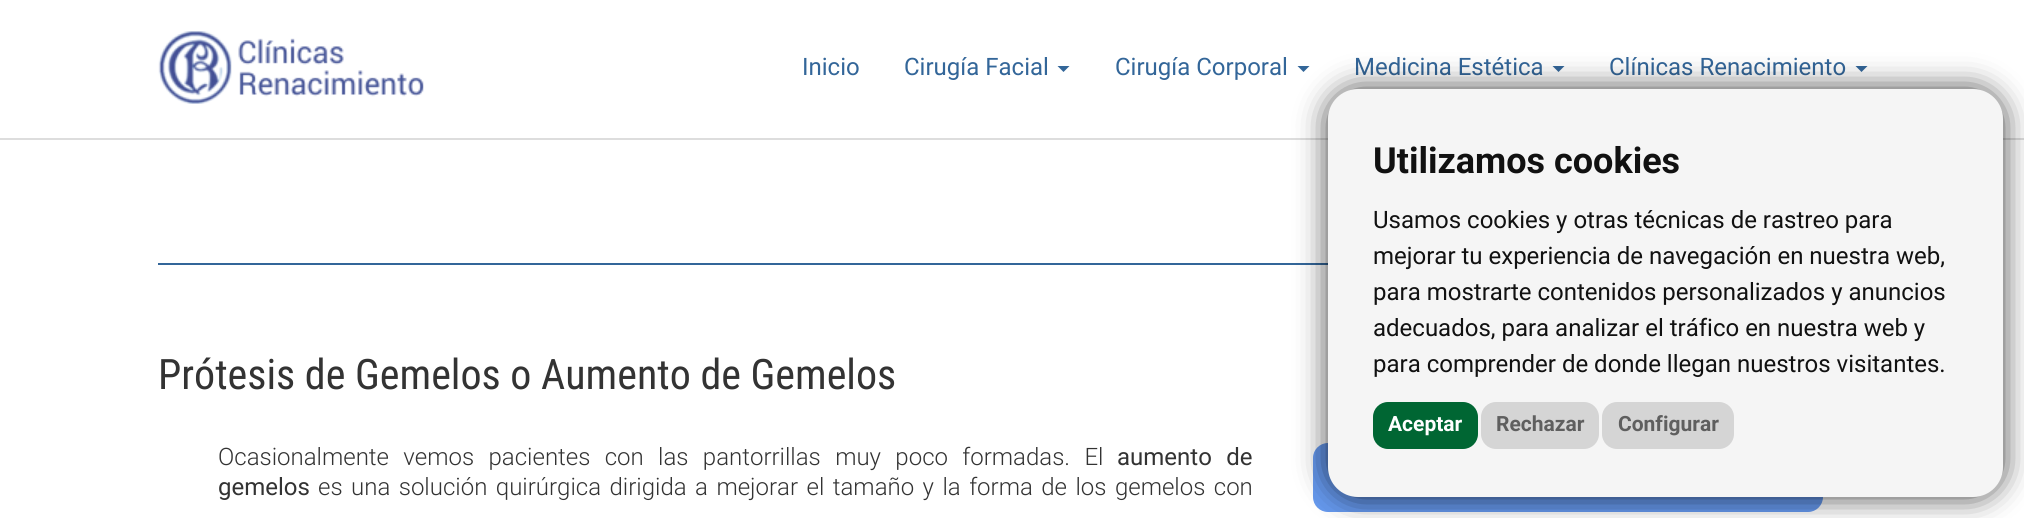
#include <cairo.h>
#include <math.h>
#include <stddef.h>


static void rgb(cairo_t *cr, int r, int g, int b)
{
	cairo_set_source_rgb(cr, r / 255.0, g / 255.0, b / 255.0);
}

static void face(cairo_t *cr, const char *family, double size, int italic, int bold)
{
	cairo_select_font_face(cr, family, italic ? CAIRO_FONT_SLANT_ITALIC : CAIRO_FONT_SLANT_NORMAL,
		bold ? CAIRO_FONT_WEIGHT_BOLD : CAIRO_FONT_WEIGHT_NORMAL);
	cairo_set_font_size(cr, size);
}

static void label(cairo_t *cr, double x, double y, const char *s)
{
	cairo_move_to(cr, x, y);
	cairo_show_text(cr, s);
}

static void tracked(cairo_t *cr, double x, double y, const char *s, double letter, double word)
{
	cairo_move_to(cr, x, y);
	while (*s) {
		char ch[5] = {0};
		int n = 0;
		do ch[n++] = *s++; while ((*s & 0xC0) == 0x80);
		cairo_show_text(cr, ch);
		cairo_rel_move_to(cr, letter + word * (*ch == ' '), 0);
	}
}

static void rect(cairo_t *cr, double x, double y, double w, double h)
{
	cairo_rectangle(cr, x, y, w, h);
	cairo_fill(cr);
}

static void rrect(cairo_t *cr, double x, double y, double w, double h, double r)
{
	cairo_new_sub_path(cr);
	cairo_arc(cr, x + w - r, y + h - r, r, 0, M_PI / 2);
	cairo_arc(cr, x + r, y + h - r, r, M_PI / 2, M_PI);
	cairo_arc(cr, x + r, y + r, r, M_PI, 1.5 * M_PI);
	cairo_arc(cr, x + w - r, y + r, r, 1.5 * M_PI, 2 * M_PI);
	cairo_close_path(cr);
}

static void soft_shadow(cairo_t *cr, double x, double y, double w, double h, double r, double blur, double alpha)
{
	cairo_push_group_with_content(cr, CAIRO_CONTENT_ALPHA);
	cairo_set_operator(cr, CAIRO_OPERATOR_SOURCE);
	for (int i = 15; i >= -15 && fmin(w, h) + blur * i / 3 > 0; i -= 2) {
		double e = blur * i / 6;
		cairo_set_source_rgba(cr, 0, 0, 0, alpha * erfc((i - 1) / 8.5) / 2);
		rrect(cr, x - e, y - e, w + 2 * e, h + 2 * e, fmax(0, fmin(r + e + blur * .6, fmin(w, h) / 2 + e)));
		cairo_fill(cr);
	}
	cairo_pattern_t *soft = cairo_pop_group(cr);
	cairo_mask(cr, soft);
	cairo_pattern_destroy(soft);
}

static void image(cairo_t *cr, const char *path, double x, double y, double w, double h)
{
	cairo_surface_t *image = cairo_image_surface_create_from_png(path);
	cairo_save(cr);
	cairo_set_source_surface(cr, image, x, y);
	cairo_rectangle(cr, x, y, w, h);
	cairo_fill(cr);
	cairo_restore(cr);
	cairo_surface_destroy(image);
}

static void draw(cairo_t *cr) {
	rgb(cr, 255, 255, 255);
	cairo_paint(cr);
	rgb(cr, 221, 221, 221);
	rect(cr, 0, 138, 2024, 2);
	image(cr, "image0.png", 158, 31, 266, 73);
	face(cr, "Roboto", 24, 0, 0);
	rgb(cr, 51, 102, 153);
	label(cr, 802, 75, "Inicio");
	label(cr, 904, 75, "Cirugía Facial");
	cairo_new_path(cr);
	cairo_move_to(cr, 1057.5, 66);
	cairo_line_to(cr, 1069.5, 66);
	cairo_line_to(cr, 1063.5, 72);
	cairo_close_path(cr);
	cairo_fill(cr);
	label(cr, 1115, 75, "Cirugía Corporal");
	cairo_new_path(cr);
	cairo_move_to(cr, 1297.5, 66);
	cairo_line_to(cr, 1309.5, 66);
	cairo_line_to(cr, 1303.5, 72);
	cairo_close_path(cr);
	cairo_fill(cr);
	label(cr, 1354, 75, "Medicina Estética");
	cairo_new_path(cr);
	cairo_move_to(cr, 1552.5, 66);
	cairo_line_to(cr, 1564.5, 66);
	cairo_line_to(cr, 1558.5, 72);
	cairo_close_path(cr);
	cairo_fill(cr);
	label(cr, 1609, 75, "Clínicas Renacimiento");
	cairo_new_path(cr);
	cairo_move_to(cr, 1855.5, 66);
	cairo_line_to(cr, 1867.5, 66);
	cairo_line_to(cr, 1861.5, 72);
	cairo_close_path(cr);
	cairo_fill(cr);
	rect(cr, 158, 263, 1170, 2);
	rgb(cr, 102, 153, 238);
	rrect(cr, 1313, 443, 510, 69, 15);
	cairo_fill(cr);
	rgb(cr, 0, 0, 0);
	soft_shadow(cr, 1328, 89, 675, 408, 30, 15, 0.75);
	rgb(cr, 245, 245, 245);
	rrect(cr, 1328, 89, 675, 408, 30);
	cairo_fill(cr);
	face(cr, "Roboto", 36, 0, 1);
	rgb(cr, 17, 17, 17);
	label(cr, 1373, 173, "Utilizamos cookies");
	face(cr, "Roboto", 24, 0, 0);
	label(cr, 1373, 228, "Usamos cookies y otras técnicas de rastreo para");
	label(cr, 1373, 264, "mejorar tu experiencia de navegación en nuestra web,");
	label(cr, 1373, 300, "para mostrarte contenidos personalizados y anuncios");
	label(cr, 1373, 336, "adecuados, para analizar el tráfico en nuestra web y");
	label(cr, 1373, 372, "para comprender de donde llegan nuestros visitantes.");
	rgb(cr, 0, 102, 51);
	rrect(cr, 1373, 402, 105, 47, 15);
	cairo_fill(cr);
	face(cr, "Roboto", 21, 0, 1);
	rgb(cr, 255, 255, 255);
	label(cr, 1388, 431, "Aceptar");
	rgb(cr, 213, 213, 213);
	rrect(cr, 1481, 402, 118, 47, 15);
	cairo_fill(cr);
	rgb(cr, 95, 95, 95);
	label(cr, 1496, 431, "Rechazar");
	rgb(cr, 213, 213, 213);
	rrect(cr, 1602, 402, 132, 47, 15);
	cairo_fill(cr);
	rgb(cr, 95, 95, 95);
	label(cr, 1618, 431, "Configurar");
	face(cr, "Roboto Condensed", 42, 0, 0);
	rgb(cr, 51, 51, 51);
	label(cr, 158, 389, "Prótesis de Gemelos o Aumento de Gemelos");
	face(cr, "Roboto Light", 24, 0, 0);
	tracked(cr, 218, 465, "Ocasionalmente vemos pacientes con las pantorrillas muy poco formadas. El", 0, 8.5);
	face(cr, "Roboto", 24, 0, 0);
	tracked(cr, 1117, 465, "aumento de", 0, 8.5);
	label(cr, 218, 495, "gemelos");
	face(cr, "Roboto Light", 24, 0, 0);
	tracked(cr, 318, 495, "es una solución quirúrgica dirigida a mejorar el tamaño y la forma de los gemelos con", 0, 2.6);
}

int main(void) {
	cairo_surface_t *surface = cairo_image_surface_create(CAIRO_FORMAT_RGB24, 2024, 518);
	cairo_t *cr = cairo_create(surface);
	cairo_font_options_t *options = cairo_font_options_create();
	cairo_font_options_set_hint_metrics(options, CAIRO_HINT_METRICS_OFF);
	cairo_font_options_set_hint_style(options, CAIRO_HINT_STYLE_NONE);
	cairo_set_font_options(cr, options);
	cairo_set_miter_limit(cr, 4);
	draw(cr);
	cairo_surface_write_to_png(surface, "render.png");
	cairo_font_options_destroy(options);
	cairo_destroy(cr);
	cairo_surface_destroy(surface);
	return 0;
}
